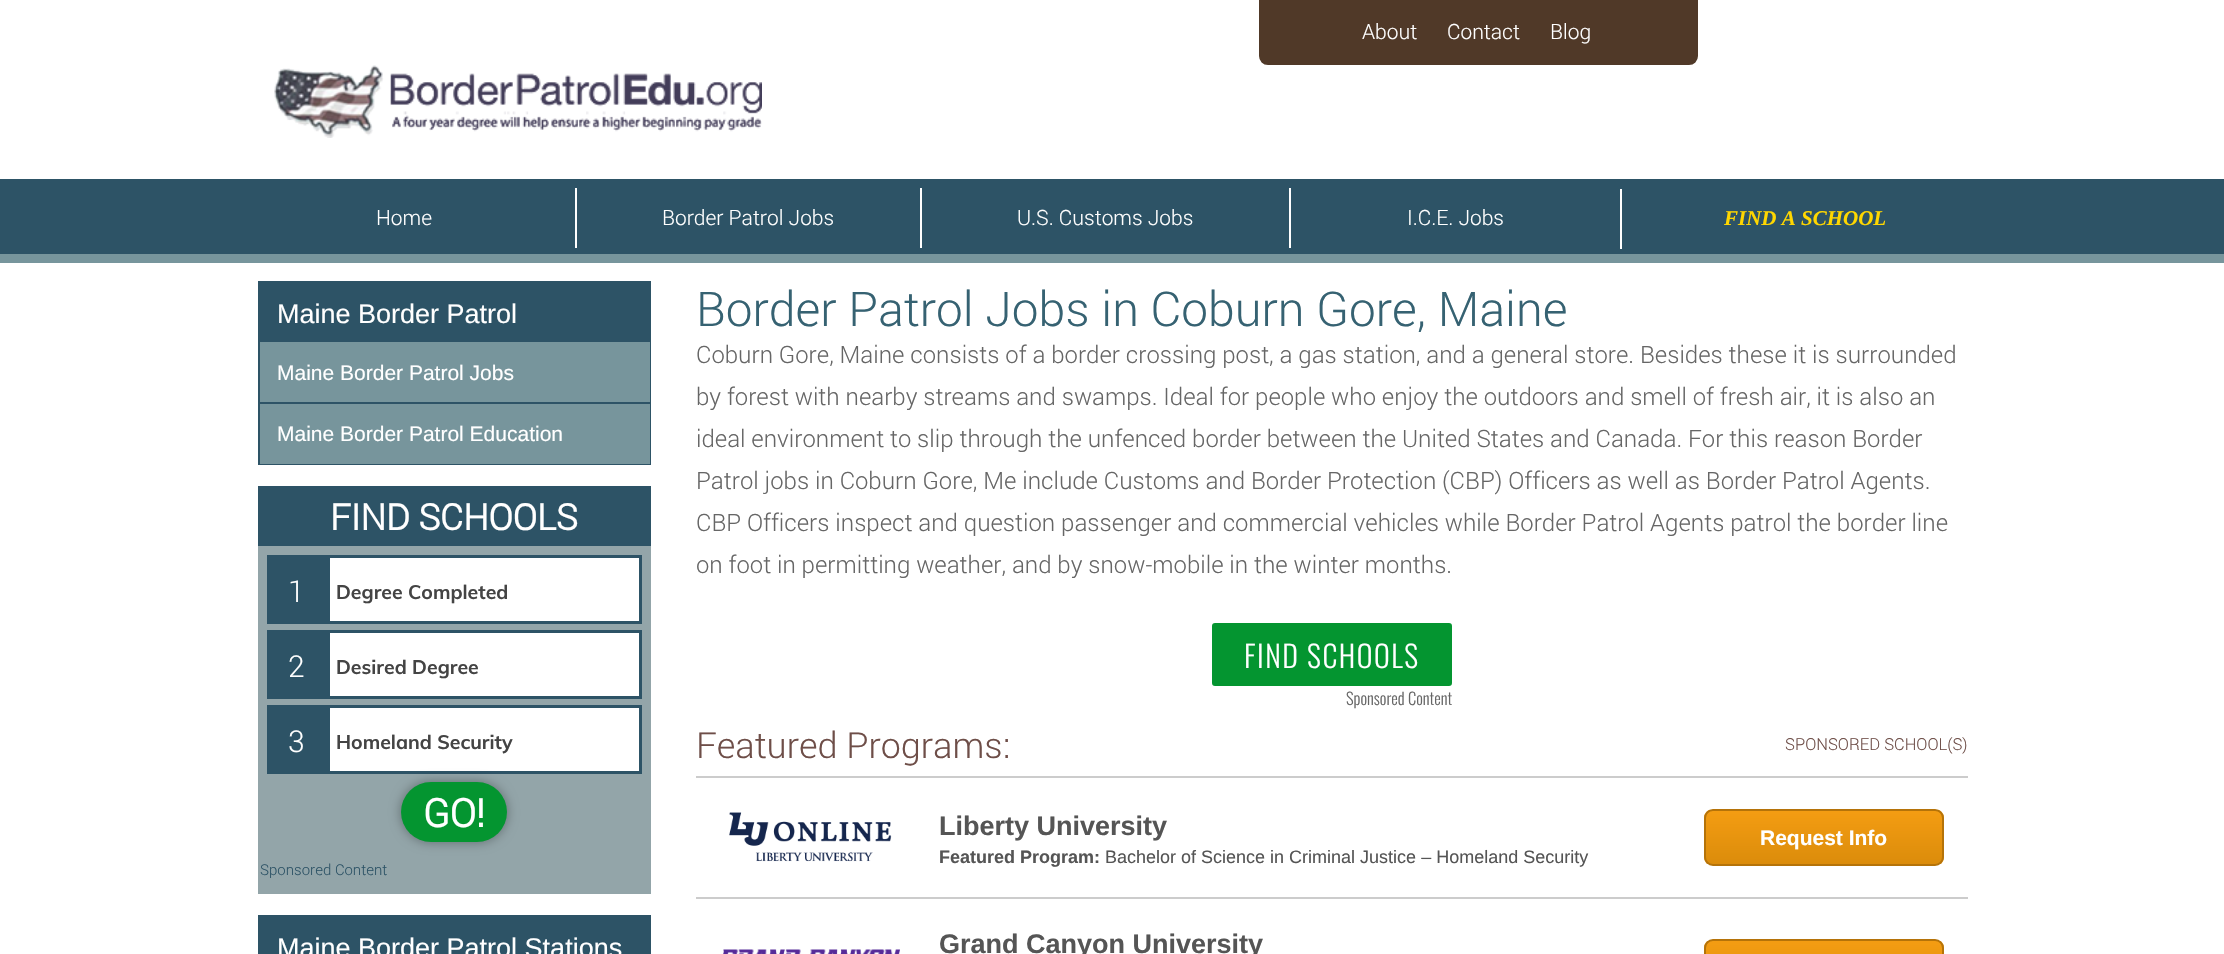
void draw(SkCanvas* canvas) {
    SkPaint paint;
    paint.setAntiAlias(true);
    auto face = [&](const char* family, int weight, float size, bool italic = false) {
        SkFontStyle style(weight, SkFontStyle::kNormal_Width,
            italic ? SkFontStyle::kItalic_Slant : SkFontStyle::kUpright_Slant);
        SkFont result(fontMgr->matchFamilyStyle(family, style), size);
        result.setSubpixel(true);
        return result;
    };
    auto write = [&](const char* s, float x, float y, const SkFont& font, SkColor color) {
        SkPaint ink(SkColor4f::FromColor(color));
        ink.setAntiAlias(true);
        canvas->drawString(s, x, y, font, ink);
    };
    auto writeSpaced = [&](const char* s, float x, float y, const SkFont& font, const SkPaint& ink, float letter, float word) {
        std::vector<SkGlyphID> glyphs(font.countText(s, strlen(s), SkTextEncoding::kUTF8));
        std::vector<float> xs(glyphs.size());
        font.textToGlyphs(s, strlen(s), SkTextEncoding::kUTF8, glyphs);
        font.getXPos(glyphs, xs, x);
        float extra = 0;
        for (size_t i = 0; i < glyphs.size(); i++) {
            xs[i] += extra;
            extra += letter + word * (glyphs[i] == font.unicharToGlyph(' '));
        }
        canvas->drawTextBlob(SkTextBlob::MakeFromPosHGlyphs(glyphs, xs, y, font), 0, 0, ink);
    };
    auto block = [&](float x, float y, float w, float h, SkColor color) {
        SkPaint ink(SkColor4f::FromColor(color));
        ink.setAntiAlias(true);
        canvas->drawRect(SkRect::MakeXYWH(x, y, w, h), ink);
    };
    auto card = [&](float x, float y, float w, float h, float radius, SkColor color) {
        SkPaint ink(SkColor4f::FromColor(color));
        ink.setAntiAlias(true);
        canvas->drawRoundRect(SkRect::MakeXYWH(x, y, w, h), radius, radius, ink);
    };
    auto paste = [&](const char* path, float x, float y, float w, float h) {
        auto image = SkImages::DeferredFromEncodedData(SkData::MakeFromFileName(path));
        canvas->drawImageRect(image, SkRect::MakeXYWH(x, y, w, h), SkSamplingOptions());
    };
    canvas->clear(SK_ColorWHITE);
    paint.setColor(SkColorSetRGB(80, 57, 40));
    canvas->drawPath(SkPathBuilder().moveTo(1260, 0).lineTo(1697, 0).lineTo(1697, 56).cubicTo(1697, 60.5f, 1693.5f, 64, 1689, 64).lineTo(1268, 64).cubicTo(1263.5f, 64, 1260, 60.5f, 1260, 56).close().detach(), paint);
    paint.setStyle(SkPaint::kStroke_Style);
    paint.setStrokeWidth(2);
    canvas->drawPath(SkPathBuilder().moveTo(1260, 0).lineTo(1697, 0).lineTo(1697, 56).cubicTo(1697, 60.5f, 1693.5f, 64, 1689, 64).lineTo(1268, 64).cubicTo(1263.5f, 64, 1260, 60.5f, 1260, 56).close().detach(), paint);
    auto kFont1 = face("Roboto", 300, 21);
    write("About", 1362, 39, kFont1, SK_ColorWHITE);
    write("Contact", 1447, 39, kFont1, SK_ColorWHITE);
    write("Blog", 1550, 39, kFont1, SK_ColorWHITE);
    paste("pic1.png", 274, 65, 488, 73);
    block(0, 179, 2224, 75, SkColorSetRGB(45, 83, 102));
    write("Home", 376, 225, kFont1, SK_ColorWHITE);
    block(575, 188, 2, 60, SK_ColorWHITE);
    write("Border Patrol Jobs", 662, 225, kFont1, SK_ColorWHITE);
    block(920, 188, 2, 60, SK_ColorWHITE);
    write("U.S. Customs Jobs", 1017, 225, kFont1, SK_ColorWHITE);
    block(1289, 188, 2, 60, SK_ColorWHITE);
    write("I.C.E. Jobs", 1407, 225, kFont1, SK_ColorWHITE);
    block(1620, 189, 2, 60, SK_ColorWHITE);
    auto kFont2 = face("Liberation Serif", 700, 21, true);
    write("FIND A SCHOOL", 1724, 225, kFont2, SkColorSetRGB(255, 215, 0));
    block(0, 254, 2224, 9, SkColorSetRGB(119, 149, 156));
    block(258, 281, 393, 61, SkColorSetRGB(45, 83, 102));
    auto kFont3 = face("Liberation Sans", 400, 27);
    write("Maine Border Patrol", 277, 323, kFont3, SK_ColorWHITE);
    block(650, 342, 1, 123, SkColorSetRGB(45, 83, 102));
    block(258, 402, 393, 2, SkColorSetRGB(45, 83, 102));
    block(258, 342, 2, 62, SkColorSetRGB(45, 83, 102));
    block(260, 342, 390, 60, SkColorSetRGB(119, 149, 156));
    auto kFont4 = face("Liberation Sans", 400, 21);
    write("Maine Border Patrol Jobs", 277, 380, kFont4, SK_ColorWHITE);
    block(258, 464, 393, 1, SkColorSetRGB(45, 83, 102));
    block(258, 404, 2, 61, SkColorSetRGB(45, 83, 102));
    block(260, 404, 390, 60, SkColorSetRGB(119, 149, 156));
    write("Maine Border Patrol Education", 277, 441, kFont4, SK_ColorWHITE);
    block(258, 546, 393, 348, SkColorSetRGB(147, 165, 169));
    block(258, 486, 393, 60, SkColorSetRGB(45, 83, 102));
    auto kFont5 = face("Roboto", 700, 36);
    write("FIND SCHOOLS", 330, 530, kFont5, SK_ColorWHITE);
    block(267, 555, 60, 69, SkColorSetRGB(45, 83, 102));
    auto kFont6 = face("Roboto", 300, 30);
    write("1", 288, 602, kFont6, SK_ColorWHITE);
    paint.setStyle(SkPaint::kFill_Style);
    paint.setColor(SK_ColorWHITE);
    canvas->drawRect(SkRect::MakeXYWH(328.5f, 556.5f, 312, 66), paint);
    paint.setStyle(SkPaint::kStroke_Style);
    paint.setStrokeWidth(3);
    paint.setColor(SkColorSetRGB(45, 83, 102));
    canvas->drawRect(SkRect::MakeXYWH(328.5f, 556.5f, 312, 66), paint);
    auto kFont7 = face("Muli", 700, 19.5f);
    write("Degree Completed", 336, 599, kFont7, SkColorSetRGB(68, 68, 68));
    block(267, 630, 60, 69, SkColorSetRGB(45, 83, 102));
    write("2", 288, 677, kFont6, SK_ColorWHITE);
    paint.setStyle(SkPaint::kFill_Style);
    paint.setColor(SK_ColorWHITE);
    canvas->drawRect(SkRect::MakeXYWH(328.5f, 631.5f, 312, 66), paint);
    paint.setStyle(SkPaint::kStroke_Style);
    paint.setColor(SkColorSetRGB(45, 83, 102));
    canvas->drawRect(SkRect::MakeXYWH(328.5f, 631.5f, 312, 66), paint);
    write("Desired Degree", 336, 674, kFont7, SkColorSetRGB(68, 68, 68));
    block(267, 705, 60, 69, SkColorSetRGB(45, 83, 102));
    write("3", 288, 752, kFont6, SK_ColorWHITE);
    paint.setStyle(SkPaint::kFill_Style);
    paint.setColor(SK_ColorWHITE);
    canvas->drawRect(SkRect::MakeXYWH(328.5f, 706.5f, 312, 66), paint);
    paint.setStyle(SkPaint::kStroke_Style);
    paint.setColor(SkColorSetRGB(45, 83, 102));
    canvas->drawRect(SkRect::MakeXYWH(328.5f, 706.5f, 312, 66), paint);
    write("Homeland Security", 336, 749, kFont7, SkColorSetRGB(68, 68, 68));
    paint.setStyle(SkPaint::kFill_Style);
    paint.setColor(SkColorSetARGB(89, 0, 0, 0));
    paint.setMaskFilter(SkMaskFilter::MakeBlur(kNormal_SkBlurStyle, 6));
    canvas->drawRoundRect(SkRect::MakeXYWH(401, 782, 106, 60), 30, 30, paint);
    paint.setMaskFilter(nullptr);
    card(401, 782, 106, 60, 30, SkColorSetRGB(4, 149, 48));
    auto kFont8 = face("Roboto", 700, 39);
    write("GO!", 423, 827, kFont8, SK_ColorWHITE);
    auto kFont9 = face("Roboto", 300, 15);
    write("Sponsored Content", 260, 875, kFont9, SkColorSetRGB(45, 83, 102));
    block(258, 915, 393, 39, SkColorSetRGB(45, 83, 102));
    write("Maine Border Patrol Stations", 277, 957, kFont3, SK_ColorWHITE);
    auto kFont10 = face("Roboto", 300, 48);
    write("Border Patrol Jobs in Coburn Gore, Maine", 696, 326, kFont10, SkColorSetRGB(54, 98, 114));
    auto kFont11 = face("Roboto", 300, 24);
    write("Coburn Gore, Maine consists of a border crossing post, a gas station, and a general store. Besides these it is surrounded", 696, 363, kFont11, SkColorSetRGB(102, 102, 102));
    write("by forest with nearby streams and swamps. Ideal for people who enjoy the outdoors and smell of fresh air, it is also an", 696, 405, kFont11, SkColorSetRGB(102, 102, 102));
    write("ideal environment to slip through the unfenced border between the United States and Canada. For this reason Border", 696, 447, kFont11, SkColorSetRGB(102, 102, 102));
    write("Patrol jobs in Coburn Gore, Me include Customs and Border Protection (CBP) Officers as well as Border Patrol Agents.", 696, 489, kFont11, SkColorSetRGB(102, 102, 102));
    write("CBP Officers inspect and question passenger and commercial vehicles while Border Patrol Agents patrol the border line", 696, 531, kFont11, SkColorSetRGB(102, 102, 102));
    write("on foot in permitting weather, and by snow-mobile in the winter months.", 696, 573, kFont11, SkColorSetRGB(102, 102, 102));
    paint.setColor(SkColorSetRGB(4, 149, 48));
    canvas->drawRoundRect(SkRect::MakeXYWH(1213, 624, 238, 61), 2, 2, paint);
    paint.setStyle(SkPaint::kStroke_Style);
    paint.setStrokeWidth(2);
    canvas->drawRoundRect(SkRect::MakeXYWH(1213, 624, 238, 61), 2, 2, paint);
    auto kFont12 = face("Oswald", 300, 30);
    paint.setStyle(SkPaint::kFill_Style);
    paint.setColor(SK_ColorWHITE);
    writeSpaced("FIND SCHOOLS", 1244, 668, kFont12, paint, 1.5f, 0);
    auto kFont13 = face("Oswald", 300, 16.5f);
    write("Sponsored Content", 1346, 705, kFont13, SkColorSetRGB(102, 102, 102));
    auto kFont14 = face("Roboto", 300, 36);
    write("Featured Programs:", 696, 758, kFont14, SkColorSetRGB(110, 78, 72));
    auto kFont15 = face("Roboto", 300, 16.5f);
    write("SPONSORED SCHOOL(S)", 1785, 750, kFont15, SkColorSetRGB(110, 78, 72));
    block(696, 776, 1272, 2, SkColorSetRGB(204, 204, 204));
    paste("pic2.png", 729, 812, 163, 50);
    auto kFont16 = face("Liberation Sans", 700, 27);
    write("Liberty University", 939, 835, kFont16, SkColorSetRGB(85, 85, 85));
    auto kFont17 = face("Liberation Sans", 700, 18);
    write("Featured Program:", 939, 863, kFont17, SkColorSetRGB(85, 85, 85));
    auto kFont18 = face("Liberation Sans", 400, 18);
    write("Bachelor of Science in Criminal Justice – Homeland Security", 1105, 863, kFont18, SkColorSetRGB(85, 85, 85));
    canvas->save();
    canvas->clipPath(SkPathBuilder().moveTo(1713, 809).lineTo(1935, 809).cubicTo(1940, 809, 1944, 813, 1944, 818).lineTo(1944, 857).cubicTo(1944, 862, 1940, 866, 1935, 866).lineTo(1713, 866).cubicTo(1708, 866, 1704, 862, 1704, 857).lineTo(1704, 818).cubicTo(1704, 813, 1708, 809, 1713, 809).close().detach(), true);
    {
        const SkColor colors[] = {SkColorSetRGB(243, 156, 18), SkColorSetRGB(219, 140, 11)};
        const float stops[] = {0.05f, 1};
        const SkPoint ends[] = {{1824, 810}, {1824, 864}};
        paint.setShader(SkGradientShader::MakeLinear(ends, colors, stops, 2, SkTileMode::kClamp));
        paint.setAlpha(255);
    }
    canvas->drawRect(SkRect::MakeXYWH(1704, 810, 240, 54), paint);
    canvas->restore();
    paint.setShader(nullptr);
    paint.setColor(SkColorSetRGB(243, 156, 18));
    canvas->drawPath(SkPathBuilder().moveTo(1713, 812).lineTo(1935, 812).cubicTo(1945, 812, 1942, 826, 1942, 832).lineTo(1942, 860).cubicTo(1942, 859, 1943, 858, 1943, 856).lineTo(1943, 818).cubicTo(1943, 814, 1939, 810, 1935, 810).lineTo(1714, 810).cubicTo(1710, 810, 1706, 814, 1706, 818).lineTo(1706, 819).cubicTo(1706, 815, 1709, 812, 1713, 812).close().detach(), paint);
    paint.setStyle(SkPaint::kStroke_Style);
    paint.setColor(SkColorSetRGB(181, 115, 9));
    canvas->drawRoundRect(SkRect::MakeXYWH(1705, 810, 238, 55), 8, 8, paint);
    auto kFont19 = face("Liberation Sans", 700, 21);
    write("Request Info", 1760, 845, kFont19, SK_ColorWHITE);
    block(696, 897, 1272, 2, SkColorSetRGB(204, 204, 204));
    paste("pic3.png", 723, 949, 177, 5);
    write("Grand Canyon University", 939, 953, kFont16, SkColorSetRGB(85, 85, 85));
    canvas->save();
    canvas->clipPath(SkPathBuilder().moveTo(1713, 939).lineTo(1935, 939).cubicTo(1940, 939, 1944, 943, 1944, 948).lineTo(1944, 987).cubicTo(1944, 992, 1940, 996, 1935, 996).lineTo(1713, 996).cubicTo(1708, 996, 1704, 992, 1704, 987).lineTo(1704, 948).cubicTo(1704, 943, 1708, 939, 1713, 939).close().detach(), true);
    paint.setStyle(SkPaint::kFill_Style);
    {
        const SkColor colors[] = {SkColorSetRGB(243, 156, 18), SkColorSetRGB(219, 140, 11)};
        const float stops[] = {0.05f, 1};
        const SkPoint ends[] = {{1824, 941}, {1824, 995}};
        paint.setShader(SkGradientShader::MakeLinear(ends, colors, stops, 2, SkTileMode::kClamp));
        paint.setAlpha(255);
    }
    canvas->drawRect(SkRect::MakeXYWH(1704, 941, 240, 13), paint);
    canvas->restore();
    paint.setShader(nullptr);
    paint.setColor(SkColorSetRGB(243, 156, 18));
    canvas->drawPath(SkPathBuilder().moveTo(1713, 942).lineTo(1935, 942).cubicTo(1939, 942, 1942, 945, 1942, 950).lineTo(1942, 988).lineTo(1941, 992).cubicTo(1942, 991, 1943, 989, 1943, 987).lineTo(1943, 949).cubicTo(1943, 945, 1939, 941, 1935, 941).lineTo(1714, 941).cubicTo(1710, 941, 1706, 945, 1706, 949).lineTo(1706, 950).cubicTo(1706, 945, 1709, 942, 1713, 942).close().detach(), paint);
    paint.setStyle(SkPaint::kStroke_Style);
    paint.setColor(SkColorSetRGB(181, 115, 9));
    canvas->drawRoundRect(SkRect::MakeXYWH(1705, 940, 238, 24), 8, 8, paint);
}
